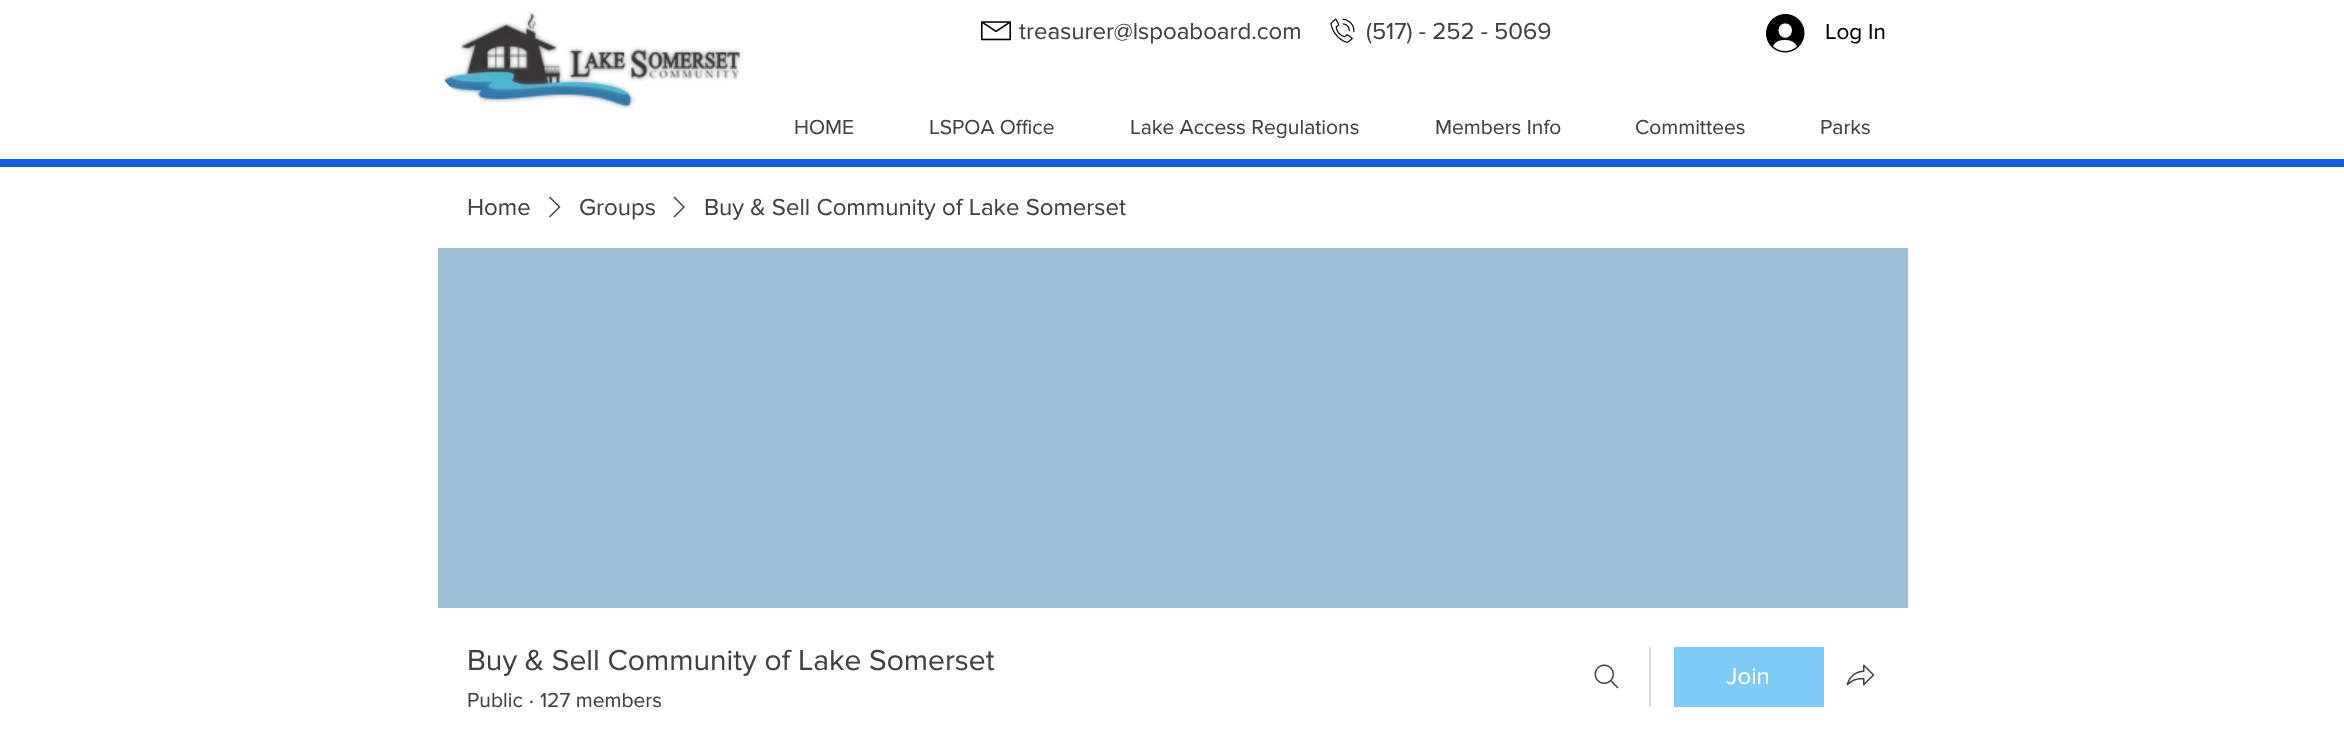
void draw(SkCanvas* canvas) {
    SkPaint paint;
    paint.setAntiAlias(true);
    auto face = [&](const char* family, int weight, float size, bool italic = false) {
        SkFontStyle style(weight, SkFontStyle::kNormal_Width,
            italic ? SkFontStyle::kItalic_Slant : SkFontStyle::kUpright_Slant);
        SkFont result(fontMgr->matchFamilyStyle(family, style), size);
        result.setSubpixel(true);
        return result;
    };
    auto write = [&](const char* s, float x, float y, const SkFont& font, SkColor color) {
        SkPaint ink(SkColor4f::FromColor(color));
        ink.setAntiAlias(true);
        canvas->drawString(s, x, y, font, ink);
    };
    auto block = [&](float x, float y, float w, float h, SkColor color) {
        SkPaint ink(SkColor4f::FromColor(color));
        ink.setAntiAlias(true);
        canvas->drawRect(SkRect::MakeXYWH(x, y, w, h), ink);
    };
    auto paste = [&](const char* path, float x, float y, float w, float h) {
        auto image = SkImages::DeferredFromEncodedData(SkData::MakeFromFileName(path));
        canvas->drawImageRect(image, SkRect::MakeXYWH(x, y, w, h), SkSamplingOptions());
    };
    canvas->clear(SK_ColorWHITE);
    paste("pic1.png", 443, 11, 300, 99);
    paste("pic2.png", 981, 21, 30, 20);
    auto kFont1 = face("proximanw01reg", 400, 24);
    write("treasurer@lspoaboard.com", 1019, 39, kFont1, SkColorSetRGB(65, 65, 65));
    paste("pic3.png", 1330, 18, 25, 25);
    write("(517) - 252 - 5069", 1366, 39, kFont1, SkColorSetRGB(65, 65, 65));
    paste("pic4.png", 1766, 14, 39, 39);
    auto kFont2 = face("proximanw01reg", 400, 22.5f);
    write("Log In", 1825, 39, kFont2, SK_ColorBLACK);
    auto kFont3 = face("proximanw01reg", 400, 21);
    write("HOME", 794, 134, kFont3, SkColorSetRGB(65, 65, 65));
    write("LSPOA Office", 929, 134, kFont3, SkColorSetRGB(65, 65, 65));
    write("Lake Access Regulations", 1130, 134, kFont3, SkColorSetRGB(65, 65, 65));
    write("Members Info", 1435, 134, kFont3, SkColorSetRGB(65, 65, 65));
    write("Committees", 1635, 134, kFont3, SkColorSetRGB(65, 65, 65));
    write("Parks", 1820, 134, kFont3, SkColorSetRGB(65, 65, 65));
    block(0, 159, 2344, 8, SkColorSetRGB(21, 93, 233));
    write("Home", 467, 215, kFont1, SkColorSetRGB(65, 65, 65));
    paint.setColor(SkColorSetRGB(65, 65, 65));
    canvas->drawPath(SkPathBuilder(SkPathFillType::kEvenOdd).moveTo(550, 196.5f).lineTo(560.5f, 207).lineTo(550, 217.5f).lineTo(549, 216.5f).lineTo(558.5f, 207).lineTo(549, 197.5f).close().detach(), paint);
    write("Groups", 579, 215, kFont1, SkColorSetRGB(65, 65, 65));
    canvas->drawPath(SkPathBuilder(SkPathFillType::kEvenOdd).moveTo(674.5f, 196.5f).lineTo(685, 207).lineTo(674.5f, 217.5f).lineTo(673.5f, 216.5f).lineTo(683, 207).lineTo(673.5f, 197.5f).close().detach(), paint);
    write("Buy & Sell Community of Lake Somerset", 704, 215, kFont1, SkColorSetRGB(65, 65, 65));
    block(438, 248, 1470, 360, SkColorSetRGB(156, 192, 213));
    auto kFont4 = face("proximanw01reg", 400, 30);
    write("Buy & Sell Community of Lake Somerset", 467, 670, kFont4, SkColorSetRGB(65, 65, 65));
    write("Public", 467, 707, kFont3, SkColorSetRGB(65, 65, 65));
    write("·", 529, 707, kFont3, SkColorSetRGB(65, 65, 65));
    write("127 members", 540, 707, kFont3, SkColorSetRGB(65, 65, 65));
    paste("pic5.png", 1594, 664, 25, 25);
    block(1649, 647, 2, 60, SkColorSetRGB(217, 217, 217));
    block(1674, 647, 150, 60, SkColorSetRGB(127, 204, 247));
    write("Join", 1726, 684, kFont1, SK_ColorWHITE);
    paste("pic6.png", 1846, 664, 29, 22);
}
